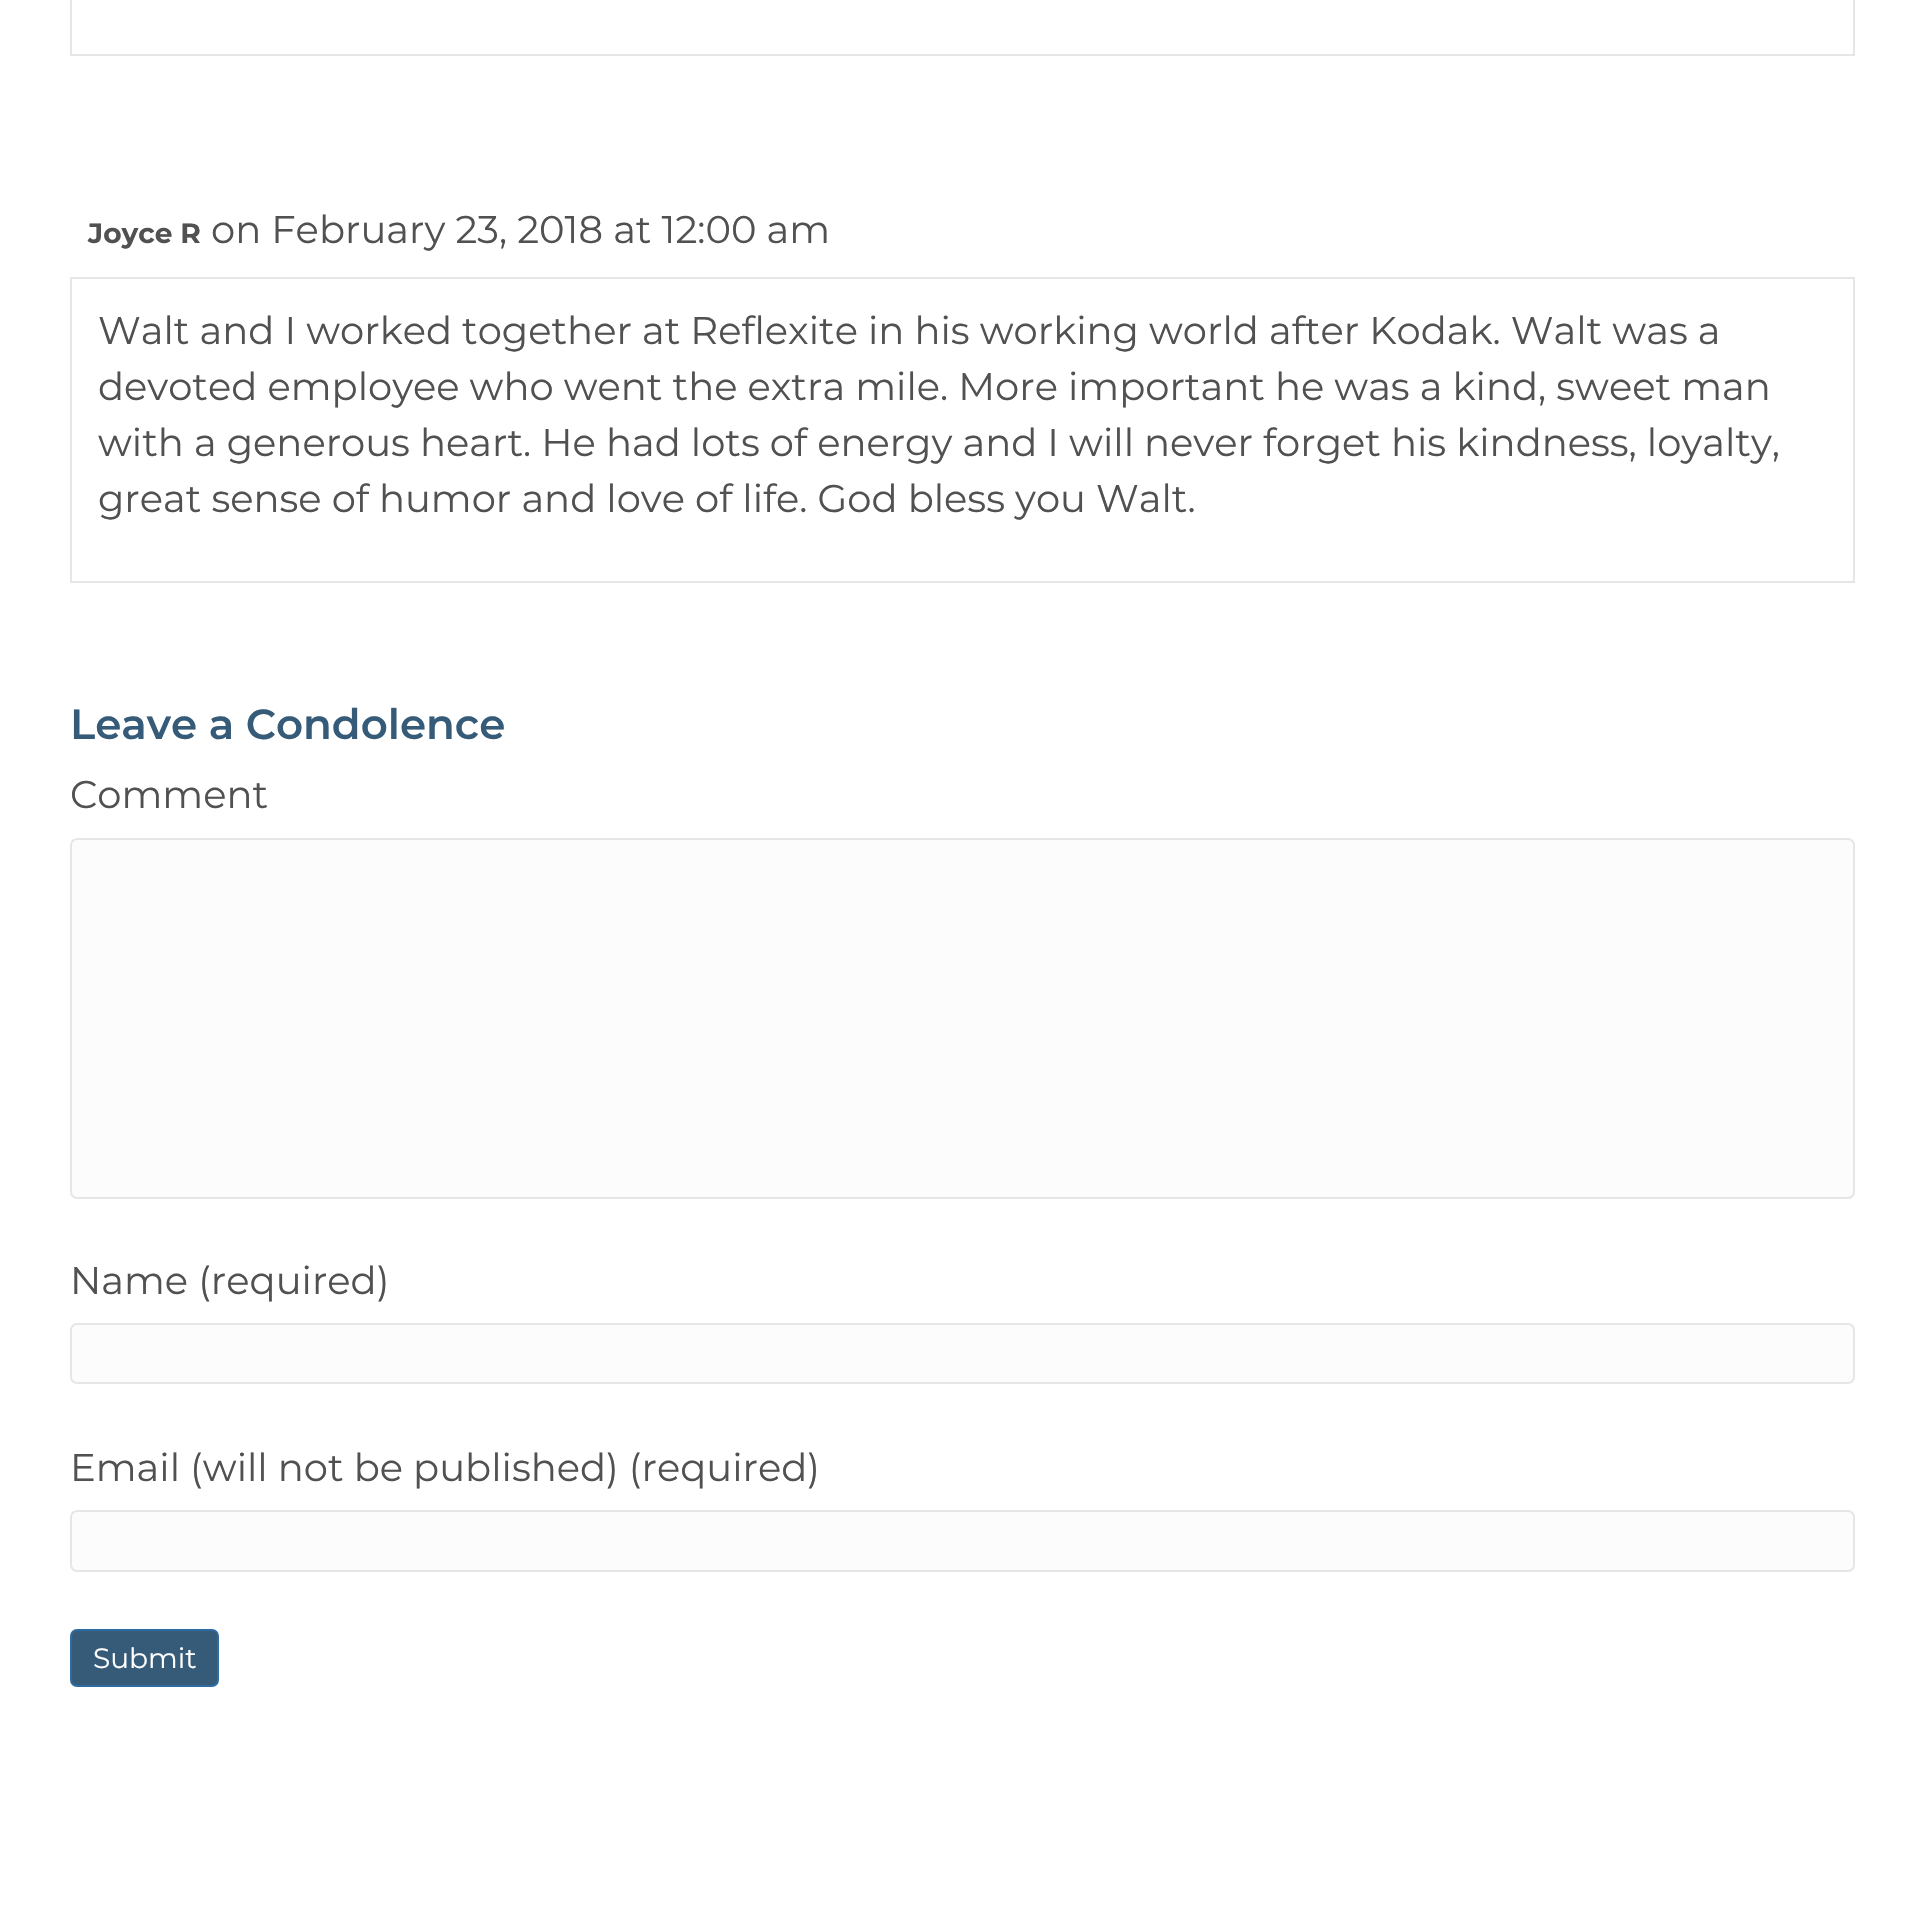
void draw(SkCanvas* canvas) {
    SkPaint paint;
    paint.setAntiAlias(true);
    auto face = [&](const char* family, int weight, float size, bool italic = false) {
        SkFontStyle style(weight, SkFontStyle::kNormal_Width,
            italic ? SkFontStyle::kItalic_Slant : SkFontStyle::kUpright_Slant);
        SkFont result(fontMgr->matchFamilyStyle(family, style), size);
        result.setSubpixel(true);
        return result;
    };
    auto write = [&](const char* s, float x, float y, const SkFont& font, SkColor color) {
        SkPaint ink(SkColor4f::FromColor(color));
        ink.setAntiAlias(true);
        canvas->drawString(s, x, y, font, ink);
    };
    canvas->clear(SK_ColorWHITE);
    paint.setStyle(SkPaint::kStroke_Style);
    paint.setStrokeWidth(2);
    paint.setColor(SkColorSetRGB(230, 230, 230));
    canvas->drawRect(SkRect::MakeXYWH(71, -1, 1783, 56), paint);
    auto kFont1 = face("Montserrat", 700, 28);
    write("Joyce R", 88, 243, kFont1, SkColorSetRGB(81, 81, 81));
    auto kFont2 = face("Montserrat", 400, 38.5f);
    write("on February 23, 2018 at 12:00 am", 211, 243, kFont2, SkColorSetRGB(81, 81, 81));
    canvas->drawRect(SkRect::MakeXYWH(71, 278, 1783, 304), paint);
    write("Walt and I worked together at Reflexite in his working world after Kodak. Walt was a", 98, 344, kFont2, SkColorSetRGB(81, 81, 81));
    write("devoted employee who went the extra mile. More important he was a kind, sweet man", 98, 400, kFont2, SkColorSetRGB(81, 81, 81));
    write("with a generous heart. He had lots of energy and I will never forget his kindness, loyalty,", 98, 456, kFont2, SkColorSetRGB(81, 81, 81));
    write("great sense of humor and love of life. God bless you Walt.", 98, 512, kFont2, SkColorSetRGB(81, 81, 81));
    auto kFont3 = face("Montserrat", 600, 42);
    write("Leave a Condolence", 70, 739, kFont3, SkColorSetRGB(53, 91, 121));
    write("Comment", 70, 808, kFont2, SkColorSetRGB(81, 81, 81));
    paint.setStyle(SkPaint::kFill_Style);
    paint.setColor(SkColorSetRGB(252, 252, 252));
    canvas->drawRoundRect(SkRect::MakeXYWH(71, 839, 1783, 359), 6, 6, paint);
    paint.setStyle(SkPaint::kStroke_Style);
    paint.setColor(SkColorSetRGB(230, 230, 230));
    canvas->drawRoundRect(SkRect::MakeXYWH(71, 839, 1783, 359), 6, 6, paint);
    write("Name (required)", 70, 1294, kFont2, SkColorSetRGB(81, 81, 81));
    paint.setStyle(SkPaint::kFill_Style);
    paint.setColor(SkColorSetRGB(252, 252, 252));
    canvas->drawRoundRect(SkRect::MakeXYWH(71, 1324, 1783, 59), 6, 6, paint);
    paint.setStyle(SkPaint::kStroke_Style);
    paint.setColor(SkColorSetRGB(230, 230, 230));
    canvas->drawRoundRect(SkRect::MakeXYWH(71, 1324, 1783, 59), 6, 6, paint);
    write("Email (will not be published) (required)", 70, 1481, kFont2, SkColorSetRGB(81, 81, 81));
    paint.setStyle(SkPaint::kFill_Style);
    paint.setColor(SkColorSetRGB(252, 252, 252));
    canvas->drawRoundRect(SkRect::MakeXYWH(71, 1511, 1783, 60), 6, 6, paint);
    paint.setStyle(SkPaint::kStroke_Style);
    paint.setColor(SkColorSetRGB(230, 230, 230));
    canvas->drawRoundRect(SkRect::MakeXYWH(71, 1511, 1783, 60), 6, 6, paint);
    paint.setStyle(SkPaint::kFill_Style);
    paint.setColor(SkColorSetRGB(53, 91, 121));
    canvas->drawRoundRect(SkRect::MakeXYWH(71, 1630, 147, 56), 6, 6, paint);
    paint.setStyle(SkPaint::kStroke_Style);
    paint.setColor(SkColorSetRGB(45, 108, 162));
    canvas->drawRoundRect(SkRect::MakeXYWH(71, 1630, 147, 56), 6, 6, paint);
    auto kFont4 = face("Montserrat", 400, 28);
    write("Submit", 93, 1668, kFont4, SK_ColorWHITE);
}
